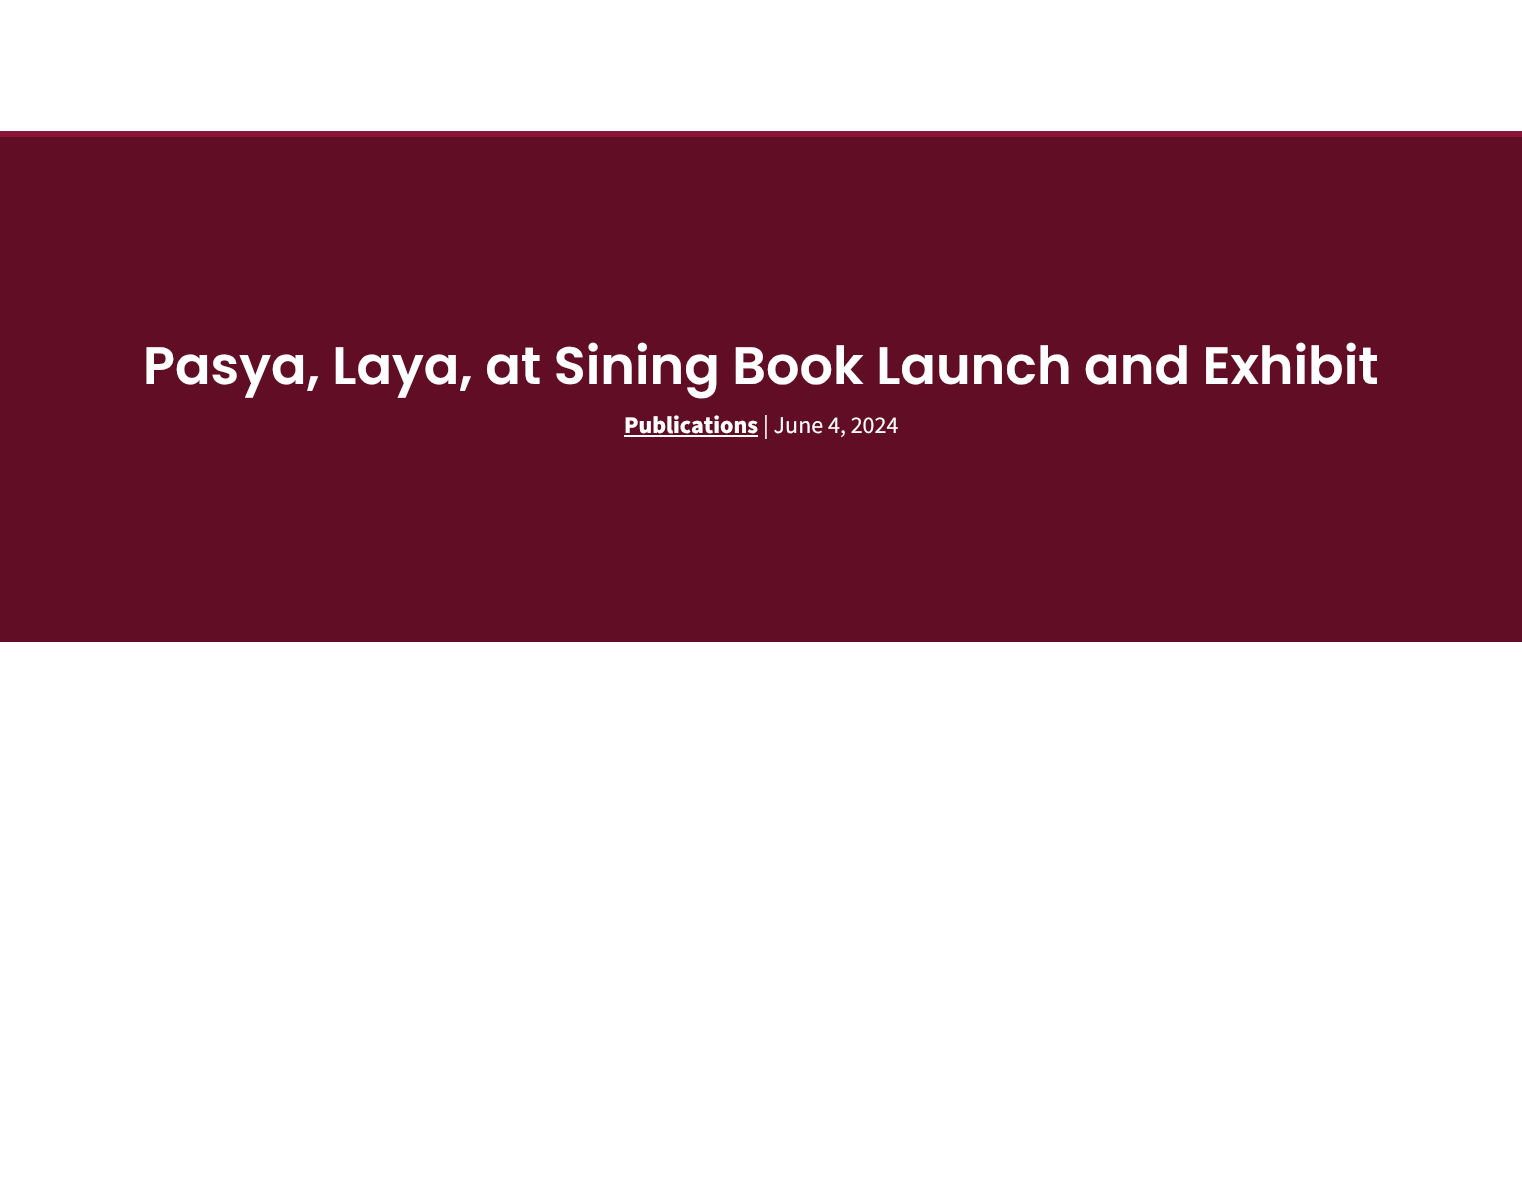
void draw(SkCanvas* canvas) {
    SkPaint paint;
    paint.setAntiAlias(true);
    auto face = [&](const char* family, int weight, float size, bool italic = false) {
        SkFontStyle style(weight, SkFontStyle::kNormal_Width,
            italic ? SkFontStyle::kItalic_Slant : SkFontStyle::kUpright_Slant);
        SkFont result(fontMgr->matchFamilyStyle(family, style), size);
        result.setSubpixel(true);
        return result;
    };
    auto write = [&](const char* s, float x, float y, const SkFont& font, SkColor color) {
        SkPaint ink(SkColor4f::FromColor(color));
        ink.setAntiAlias(true);
        canvas->drawString(s, x, y, font, ink);
    };
    auto block = [&](float x, float y, float w, float h, SkColor color) {
        SkPaint ink(SkColor4f::FromColor(color));
        ink.setAntiAlias(true);
        canvas->drawRect(SkRect::MakeXYWH(x, y, w, h), ink);
    };
    canvas->clear(SK_ColorWHITE);
    block(0, 131, 1522, 6, SkColorSetRGB(138, 21, 56));
    block(0, 137, 1522, 505, SkColorSetRGB(98, 13, 38));
    auto kFont1 = face("Poppins", 600, 52.5f);
    write("Pasya, Laya, at Sining Book Launch and Exhibit", 143, 384, kFont1, SK_ColorWHITE);
    auto kFont2 = face("Source Sans 3", 800, 24);
    write("Publications", 624, 433, kFont2, SK_ColorWHITE);
    block(624, 435, 134, 2, SK_ColorWHITE);
    auto kFont3 = face("Source Sans 3", 400, 24);
    write("| June 4, 2024", 763, 433, kFont3, SK_ColorWHITE);
}
